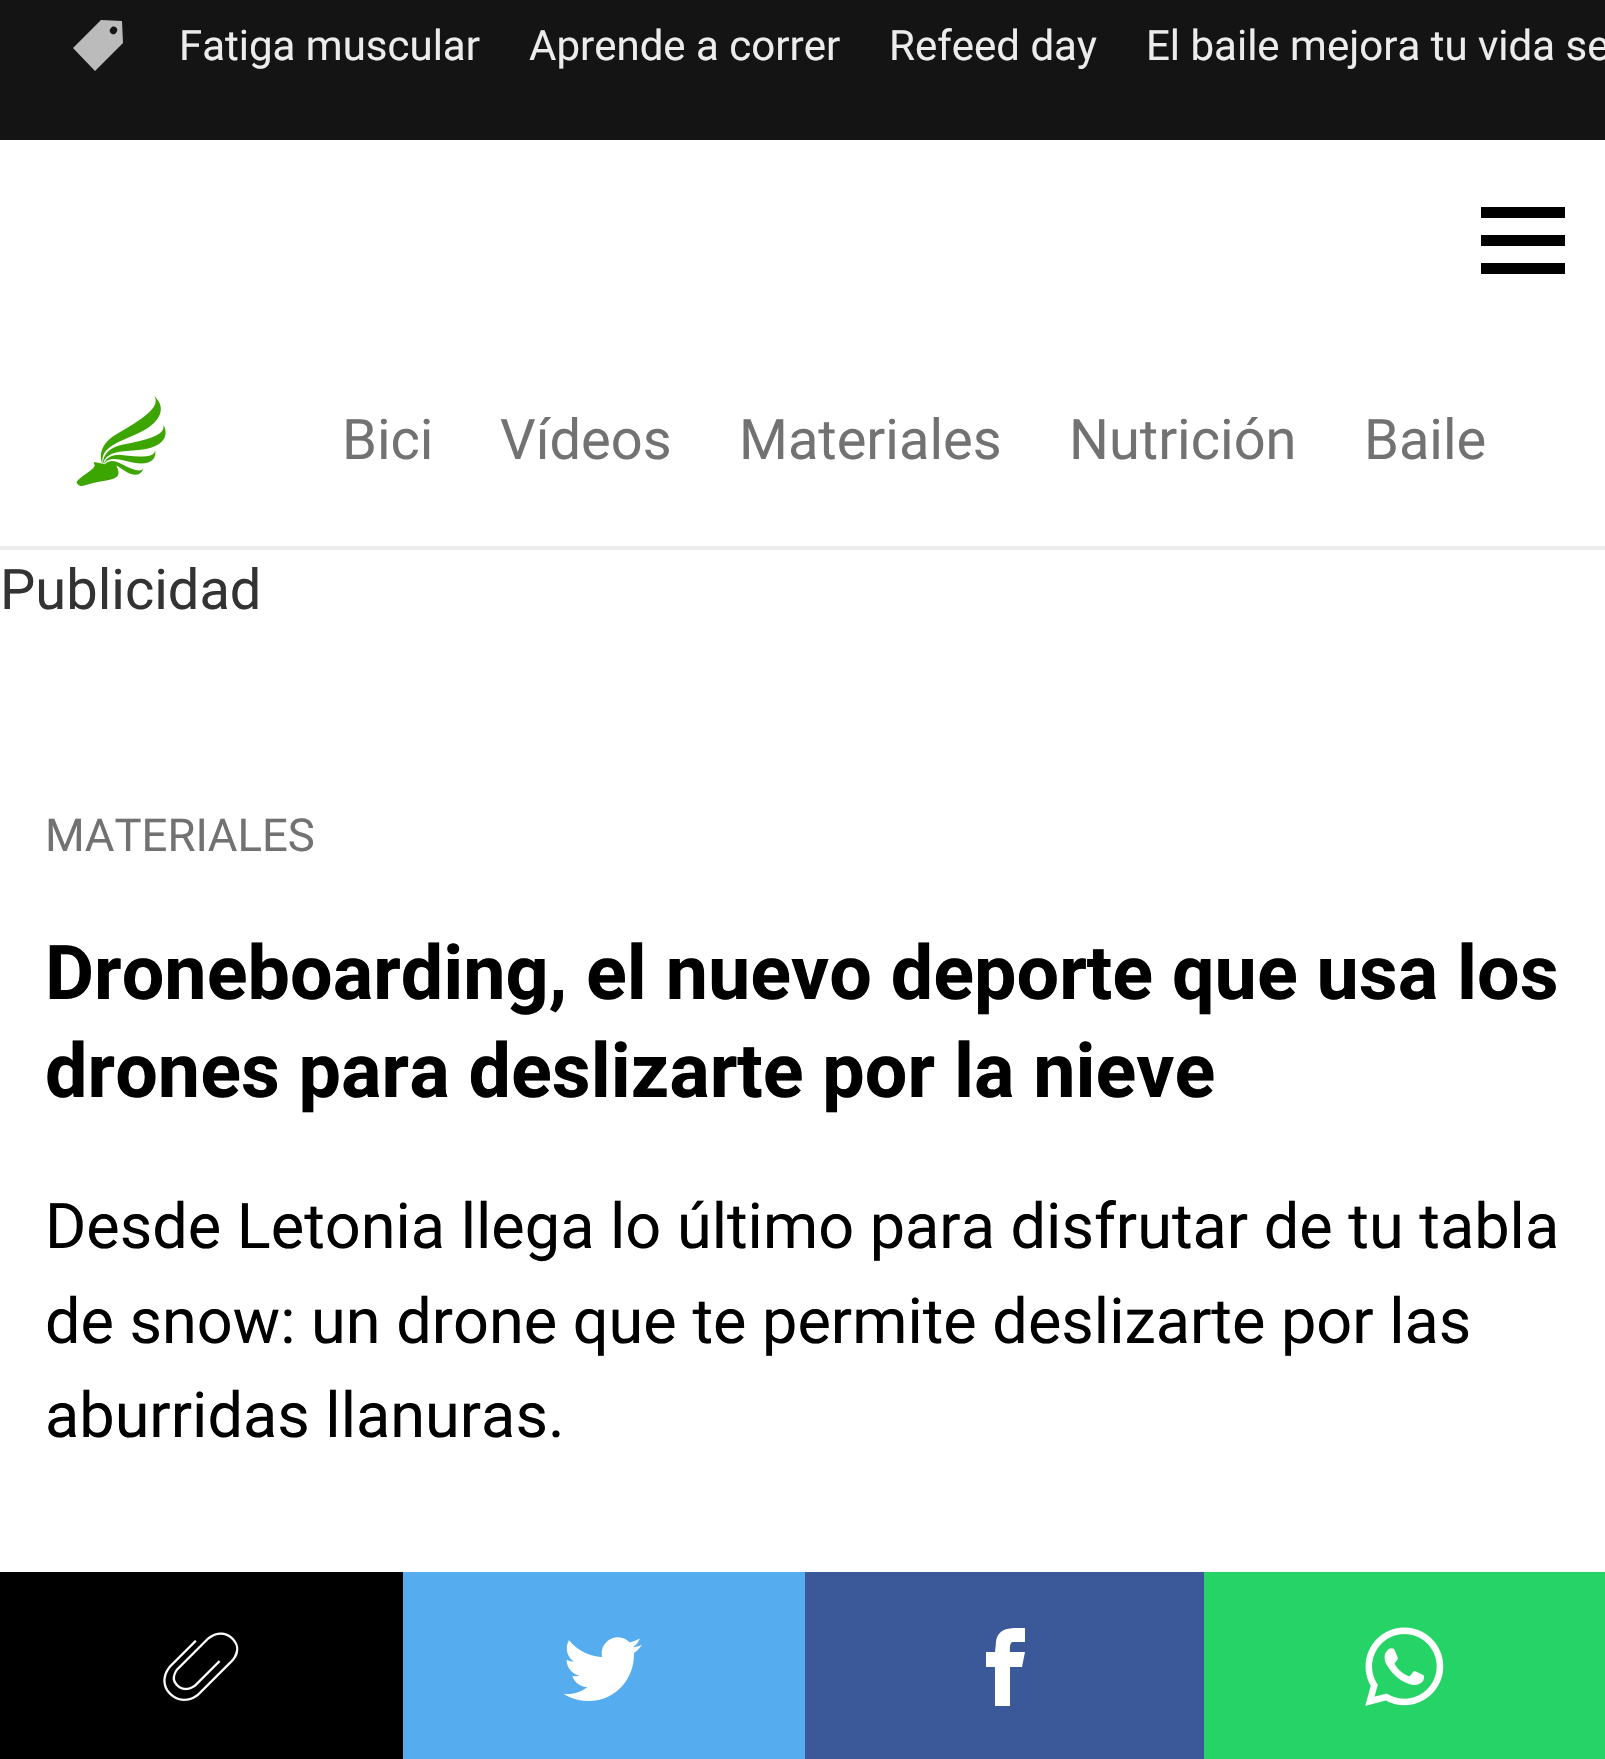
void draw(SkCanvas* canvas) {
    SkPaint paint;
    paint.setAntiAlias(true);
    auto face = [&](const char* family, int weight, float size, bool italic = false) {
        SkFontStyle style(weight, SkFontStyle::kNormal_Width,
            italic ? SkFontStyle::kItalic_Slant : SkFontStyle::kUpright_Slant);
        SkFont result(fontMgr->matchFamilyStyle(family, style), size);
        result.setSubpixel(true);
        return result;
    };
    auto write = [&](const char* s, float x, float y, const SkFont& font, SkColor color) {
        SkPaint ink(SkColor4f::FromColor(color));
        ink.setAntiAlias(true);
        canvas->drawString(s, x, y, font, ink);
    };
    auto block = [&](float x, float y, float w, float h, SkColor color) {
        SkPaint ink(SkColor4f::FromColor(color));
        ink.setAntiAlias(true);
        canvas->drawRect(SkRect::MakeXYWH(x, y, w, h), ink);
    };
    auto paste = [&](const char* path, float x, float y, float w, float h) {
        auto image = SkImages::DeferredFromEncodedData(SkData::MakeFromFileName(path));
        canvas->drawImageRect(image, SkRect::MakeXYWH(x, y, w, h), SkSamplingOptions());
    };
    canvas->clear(SkColorSetRGB(20, 20, 20));
    paint.setColor(SkColorSetRGB(187, 187, 187));
    canvas->drawPath(SkPathBuilder().moveTo(122, 21).lineTo(101, 20).lineTo(73, 48).lineTo(95, 71).lineTo(123, 43).close().moveTo(116, 33).cubicTo(113, 37, 107, 31, 111, 28).cubicTo(114, 24, 120, 29, 116, 33).close().detach(), paint);
    auto kFont1 = face("Roboto", 400, 42);
    write("Fatiga muscular", 179, 60, kFont1, SkColorSetRGB(236, 236, 236));
    write("Aprende a correr", 529, 60, kFont1, SkColorSetRGB(236, 236, 236));
    write("Refeed day", 889, 60, kFont1, SkColorSetRGB(236, 236, 236));
    write("El baile mejora tu vida se", 1146, 60, kFont1, SkColorSetRGB(236, 236, 236));
    block(0, 140, 1605, 406, SK_ColorWHITE);
    block(1481, 235, 84, 11, SK_ColorBLACK);
    block(1481, 207, 84, 11, SK_ColorBLACK);
    block(1481, 263, 84, 11, SK_ColorBLACK);
    block(0, 546, 1605, 4, SkColorSetRGB(236, 236, 236));
    paste("pic1.png", 76, 396, 90, 91);
    auto kFont2 = face("Roboto", 400, 56);
    write("Bici", 342, 459, kFont2, SkColorSetRGB(114, 114, 114));
    write("Vídeos", 500, 459, kFont2, SkColorSetRGB(114, 114, 114));
    write("Materiales", 739, 459, kFont2, SkColorSetRGB(114, 114, 114));
    write("Nutrición", 1069, 459, kFont2, SkColorSetRGB(114, 114, 114));
    write("Baile", 1364, 459, kFont2, SkColorSetRGB(114, 114, 114));
    block(0, 550, 1605, 1022, SK_ColorWHITE);
    write("Publicidad", 0, 609, kFont2, SkColorSetRGB(51, 51, 51));
    auto kFont3 = face("Roboto", 400, 45.5f);
    write("MATERIALES", 45, 851, kFont3, SkColorSetRGB(114, 114, 114));
    auto kFont4 = face("Roboto", 700, 75.5f);
    write("Droneboarding, el nuevo deporte que usa los", 45, 999, kFont4, SK_ColorBLACK);
    write("drones para deslizarte por la nieve", 45, 1097, kFont4, SK_ColorBLACK);
    auto kFont5 = face("Roboto", 400, 63);
    write("Desde Letonia llega lo último para disfrutar de tu tabla", 45, 1248, kFont5, SK_ColorBLACK);
    write("de snow: un drone que te permite deslizarte por las", 45, 1343, kFont5, SK_ColorBLACK);
    write("aburridas llanuras.", 45, 1437, kFont5, SK_ColorBLACK);
    block(0, 1572, 403, 187, SK_ColorBLACK);
    paste("pic2.png", 163, 1632, 76, 69);
    block(403, 1572, 402, 187, SkColorSetRGB(85, 172, 238));
    paste("pic3.png", 563, 1637, 79, 64);
    block(805, 1572, 399, 187, SkColorSetRGB(59, 89, 152));
    paint.setColor(SK_ColorWHITE);
    canvas->drawPath(SkPathBuilder().moveTo(1013, 1642).lineTo(1025, 1642).lineTo(1025, 1628).cubicTo(1013, 1628, 998, 1626, 996, 1642).lineTo(995, 1652).lineTo(986, 1652).lineTo(986, 1667).lineTo(995, 1667).lineTo(995, 1706).lineTo(1010, 1706).lineTo(1010, 1667).lineTo(1022, 1667).lineTo(1025, 1652).lineTo(1010, 1652).cubicTo(1010, 1650, 1009, 1642, 1013, 1642).close().detach(), paint);
    block(1204, 1572, 401, 187, SkColorSetRGB(37, 211, 102));
    paste("pic4.png", 1365, 1627, 79, 79);
}
